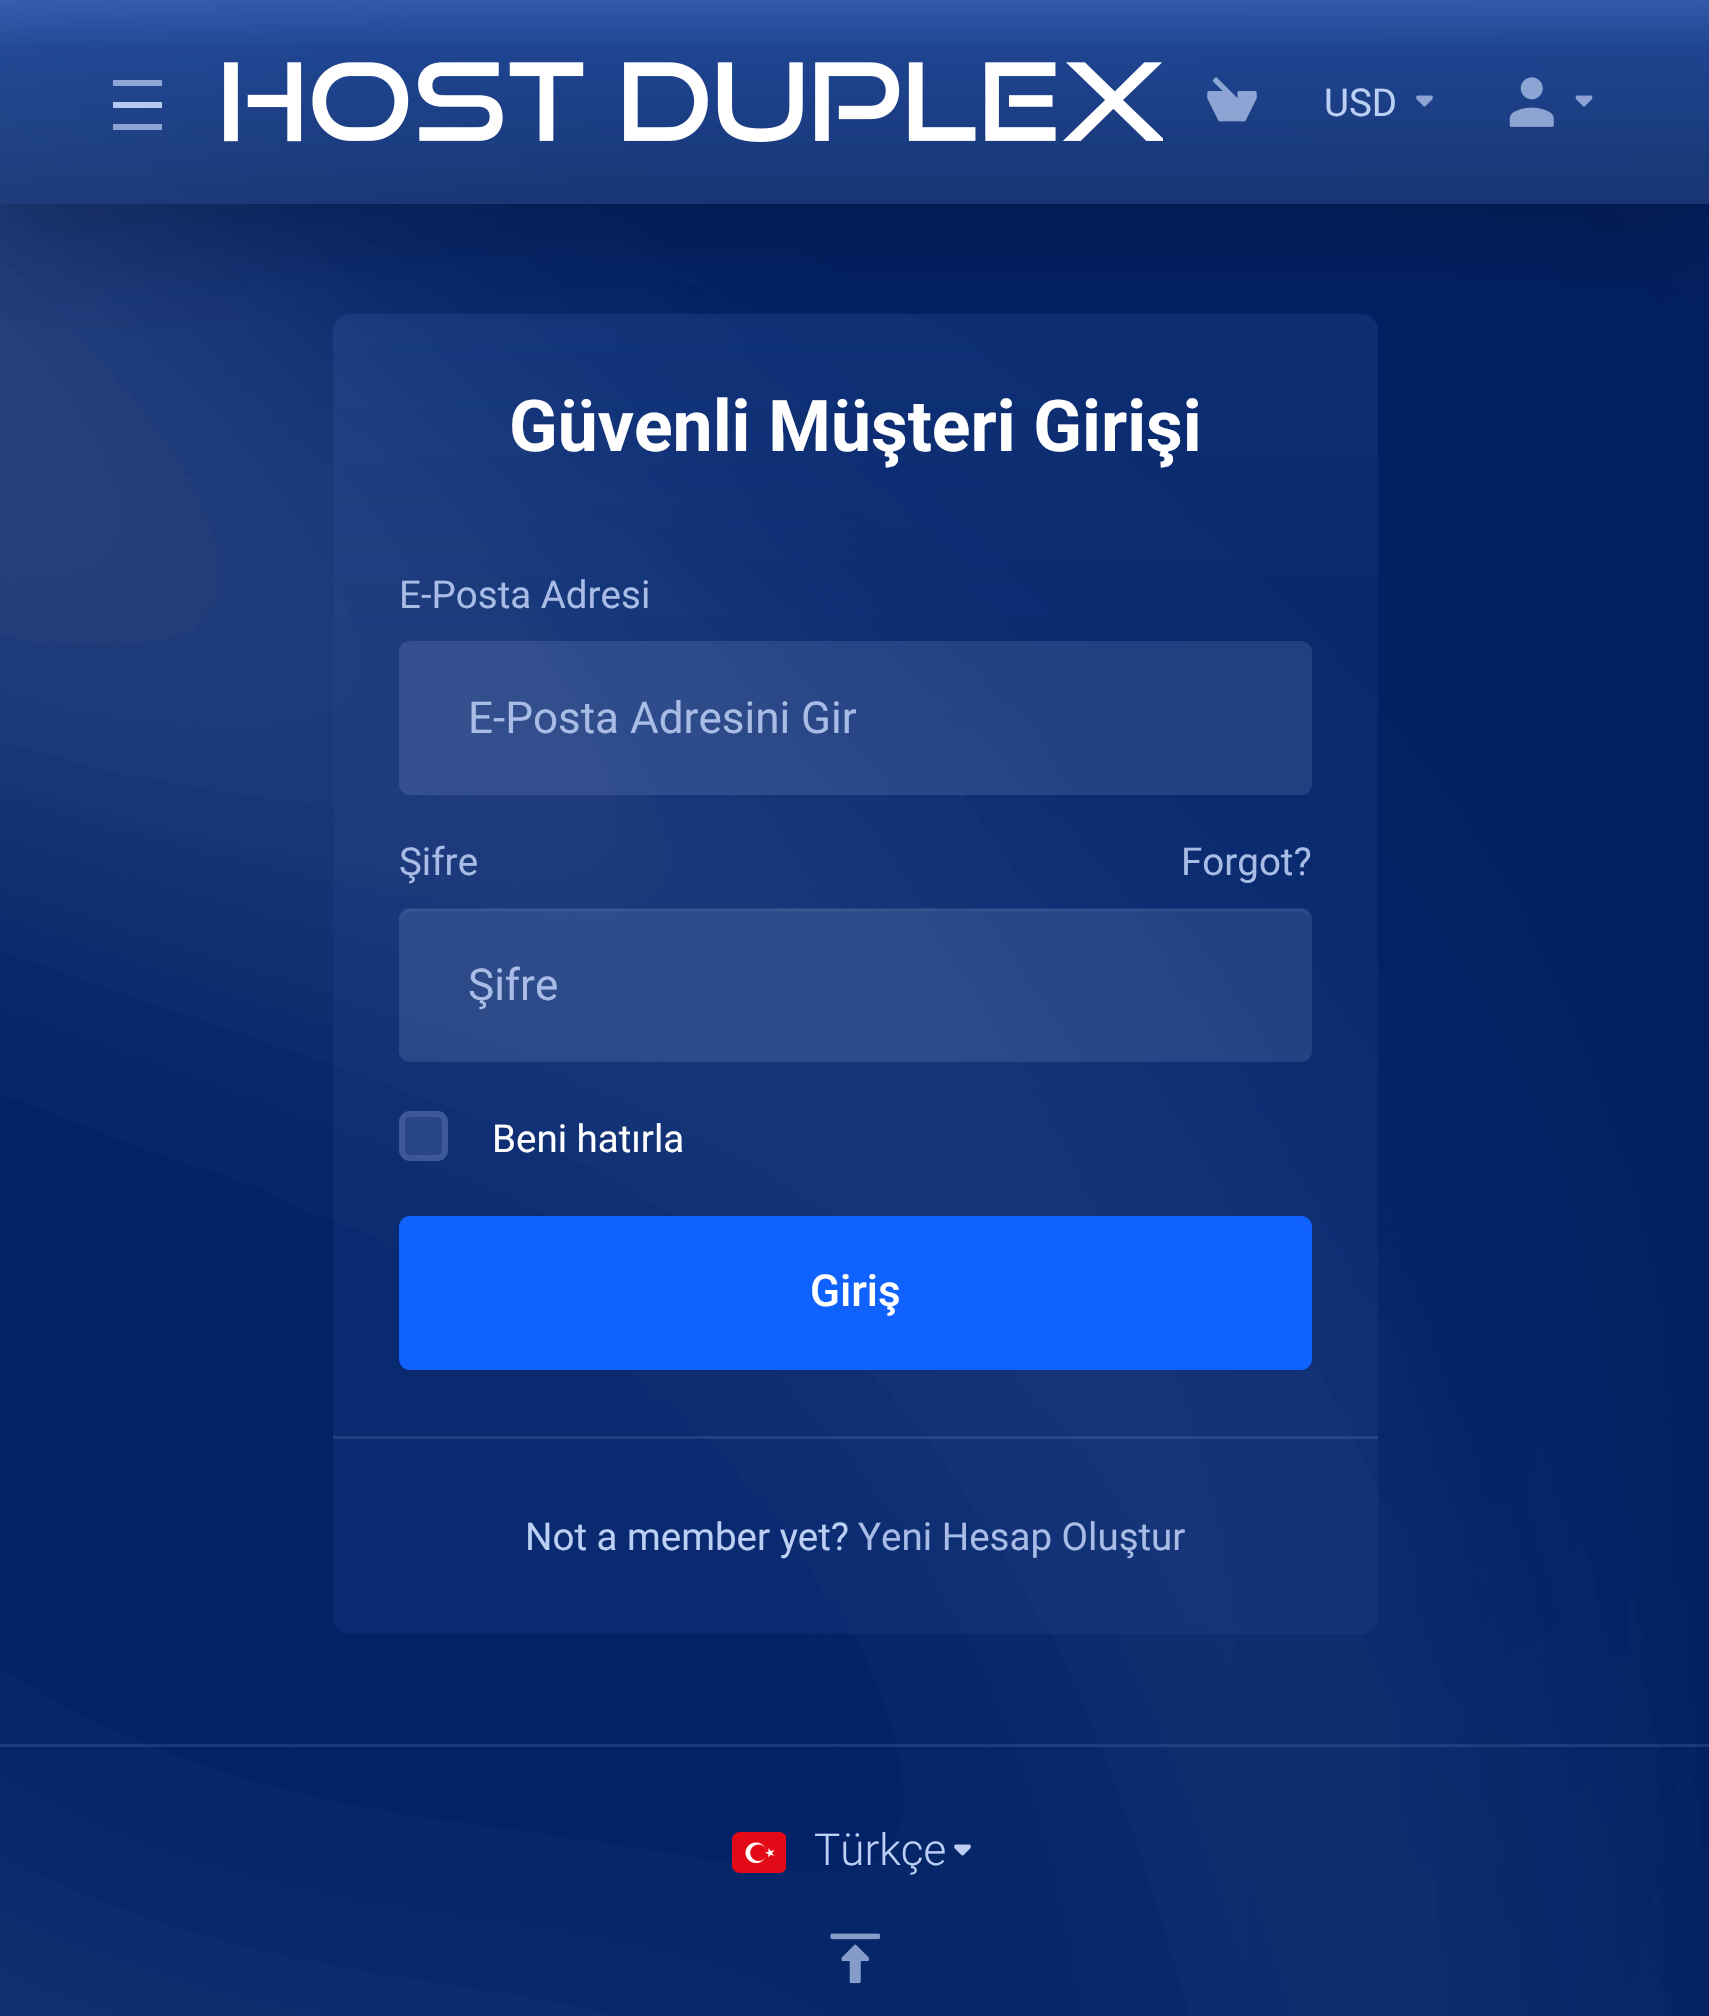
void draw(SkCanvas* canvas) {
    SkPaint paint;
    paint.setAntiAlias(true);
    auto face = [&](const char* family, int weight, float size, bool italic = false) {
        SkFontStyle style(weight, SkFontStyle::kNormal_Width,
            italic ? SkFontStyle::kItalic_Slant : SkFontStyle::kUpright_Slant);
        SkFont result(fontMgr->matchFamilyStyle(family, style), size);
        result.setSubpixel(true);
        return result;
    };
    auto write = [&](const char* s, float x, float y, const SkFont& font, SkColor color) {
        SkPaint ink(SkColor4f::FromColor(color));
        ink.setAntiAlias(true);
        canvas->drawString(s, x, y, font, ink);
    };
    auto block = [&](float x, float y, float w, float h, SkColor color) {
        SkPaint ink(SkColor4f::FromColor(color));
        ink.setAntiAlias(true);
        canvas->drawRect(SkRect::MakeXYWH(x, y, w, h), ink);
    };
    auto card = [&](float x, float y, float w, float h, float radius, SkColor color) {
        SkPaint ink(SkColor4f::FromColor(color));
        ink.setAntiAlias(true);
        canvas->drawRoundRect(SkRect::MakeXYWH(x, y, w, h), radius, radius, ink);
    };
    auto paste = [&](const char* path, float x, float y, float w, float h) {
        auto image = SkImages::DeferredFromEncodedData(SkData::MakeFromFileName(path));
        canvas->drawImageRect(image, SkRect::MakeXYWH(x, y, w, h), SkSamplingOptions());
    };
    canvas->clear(SkColorSetRGB(2, 34, 104));
    paste("pic1.png", 0, 0, 1709, 2016);
    {
        const SkColor colors[] = {SkColorSetARGB(41, 75, 120, 210), SkColorSetARGB(41, 41, 82, 163), SkColorSetARGB(41, 41, 82, 163)};
        const float stops[] = {0, 0.24f, 1};
        const SkPoint ends[] = {{855, 313}, {855, 1634}};
        paint.setShader(SkGradientShader::MakeLinear(ends, colors, stops, 3, SkTileMode::kClamp));
        paint.setAlpha(255);
    }
    canvas->drawRoundRect(SkRect::MakeXYWH(333, 314, 1045, 1320), 17, 17, paint);
    canvas->save();
    canvas->clipPath(SkPathBuilder(SkPathFillType::kEvenOdd).moveTo(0, 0).lineTo(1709, 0).lineTo(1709, 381).lineTo(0, 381).close().moveTo(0, 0).lineTo(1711, 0).lineTo(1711, 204).lineTo(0, 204).close().detach(), true);
    paint.setShader(nullptr);
    paint.setColor(SkColorSetARGB(41, 0, 0, 0));
    paint.setMaskFilter(SkMaskFilter::MakeBlur(kNormal_SkBlurStyle, 44));
    canvas->drawRect(SkRect::MakeXYWH(0, 44, 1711, 204), paint);
    paint.setMaskFilter(nullptr);
    canvas->restore();
    {
        const SkColor colors[] = {SkColorSetARGB(166, 75, 120, 210), SkColorSetARGB(184, 41, 82, 163), SkColorSetARGB(184, 31, 61, 122)};
        const float stops[] = {0, 0.24f, 1};
        const SkPoint ends[] = {{855, 0}, {855, 204}};
        paint.setShader(SkGradientShader::MakeLinear(ends, colors, stops, 3, SkTileMode::kClamp));
        paint.setAlpha(255);
    }
    canvas->drawRect(SkRect::MakeXYWH(0, 0, 1709, 204), paint);
    block(113, 80, 49, 6, SkColorSetRGB(142, 166, 214));
    block(113, 102, 49, 6, SkColorSetRGB(182, 201, 240));
    block(113, 124, 49, 6, SkColorSetRGB(141, 164, 211));
    paste("pic2.png", 224, 62, 939, 80);
    paste("pic3.png", 1207, 77, 50, 45);
    auto kFont1 = face("Roboto", 400, 38.5f);
    write("USD", 1324, 116, kFont1, SkColorSetRGB(188, 207, 244));
    paste("pic4.png", 1416, 95, 17, 12);
    paste("pic5.png", 1509, 77, 45, 50);
    paste("pic6.png", 1575, 95, 18, 12);
    auto kFont2 = face("Roboto", 700, 71.5f);
    write("Güvenli Müşteri Girişi", 509, 451, kFont2, SK_ColorWHITE);
    write("E-Posta Adresi", 399, 608, kFont1, SkColorSetRGB(168, 188, 229));
    card(402, 644, 907, 148, 8, SkColorSetARGB(31, 204, 221, 255));
    paint.setStyle(SkPaint::kStroke_Style);
    paint.setStrokeWidth(3);
    paint.setShader(nullptr);
    paint.setColor(SkColorSetARGB(31, 204, 221, 255));
    canvas->drawRoundRect(SkRect::MakeXYWH(400.5f, 642.5f, 910, 151), 9.5f, 9.5f, paint);
    auto kFont3 = face("Roboto", 400, 44);
    write("E-Posta Adresini Gir", 468, 733, kFont3, SkColorSetRGB(168, 188, 229));
    write("Şifre", 399, 875, kFont1, SkColorSetRGB(168, 188, 229));
    write("Forgot?", 1181, 875, kFont1, SkColorSetRGB(168, 188, 229));
    card(402, 910, 907, 149, 8, SkColorSetARGB(31, 204, 221, 255));
    canvas->drawRoundRect(SkRect::MakeXYWH(400.5f, 909.5f, 910, 151), 9.5f, 9.5f, paint);
    write("Şifre", 468, 1000, kFont3, SkColorSetRGB(168, 188, 229));
    card(399, 1111, 49, 50, 11, SkColorSetARGB(31, 204, 221, 255));
    paint.setStrokeWidth(6);
    canvas->drawRoundRect(SkRect::MakeXYWH(402, 1114, 43, 44), 8, 8, paint);
    write("Beni hatırla", 492, 1152, kFont1, SK_ColorWHITE);
    paint.setStyle(SkPaint::kFill_Style);
    paint.setColor(SkColorSetARGB(26, 0, 0, 0));
    paint.setMaskFilter(SkMaskFilter::MakeBlur(kNormal_SkBlurStyle, 1.5f));
    canvas->drawRoundRect(SkRect::MakeXYWH(399, 1216, 913, 154), 11, 11, paint);
    paint.setMaskFilter(nullptr);
    paint.setColor(SkColorSetRGB(16, 98, 254));
    canvas->drawRoundRect(SkRect::MakeXYWH(400.5f, 1217.5f, 910, 151), 9.5f, 9.5f, paint);
    paint.setStyle(SkPaint::kStroke_Style);
    paint.setStrokeWidth(3);
    canvas->drawRoundRect(SkRect::MakeXYWH(400.5f, 1217.5f, 910, 151), 9.5f, 9.5f, paint);
    auto kFont4 = face("Roboto", 500, 44);
    write("Giriş", 810, 1306, kFont4, SK_ColorWHITE);
    block(333, 1436, 1045, 3, SkColorSetARGB(31, 178, 204, 255));
    write("Not a member yet?", 525, 1550, kFont1, SkColorSetRGB(188, 207, 244));
    write("Yeni Hesap Oluştur", 858, 1550, kFont1, SkColorSetRGB(168, 188, 229));
    block(0, 1744, 1709, 3, SkColorSetARGB(31, 178, 204, 255));
    paste("pic7.png", 732, 1832, 54, 41);
    auto kFont5 = face("Roboto", 300, 44);
    write("Türkçe", 814, 1865, kFont5, SkColorSetRGB(188, 207, 244));
    paste("pic8.png", 954, 1844, 17, 12);
    paste("pic9.png", 830, 1933, 50, 51);
}
